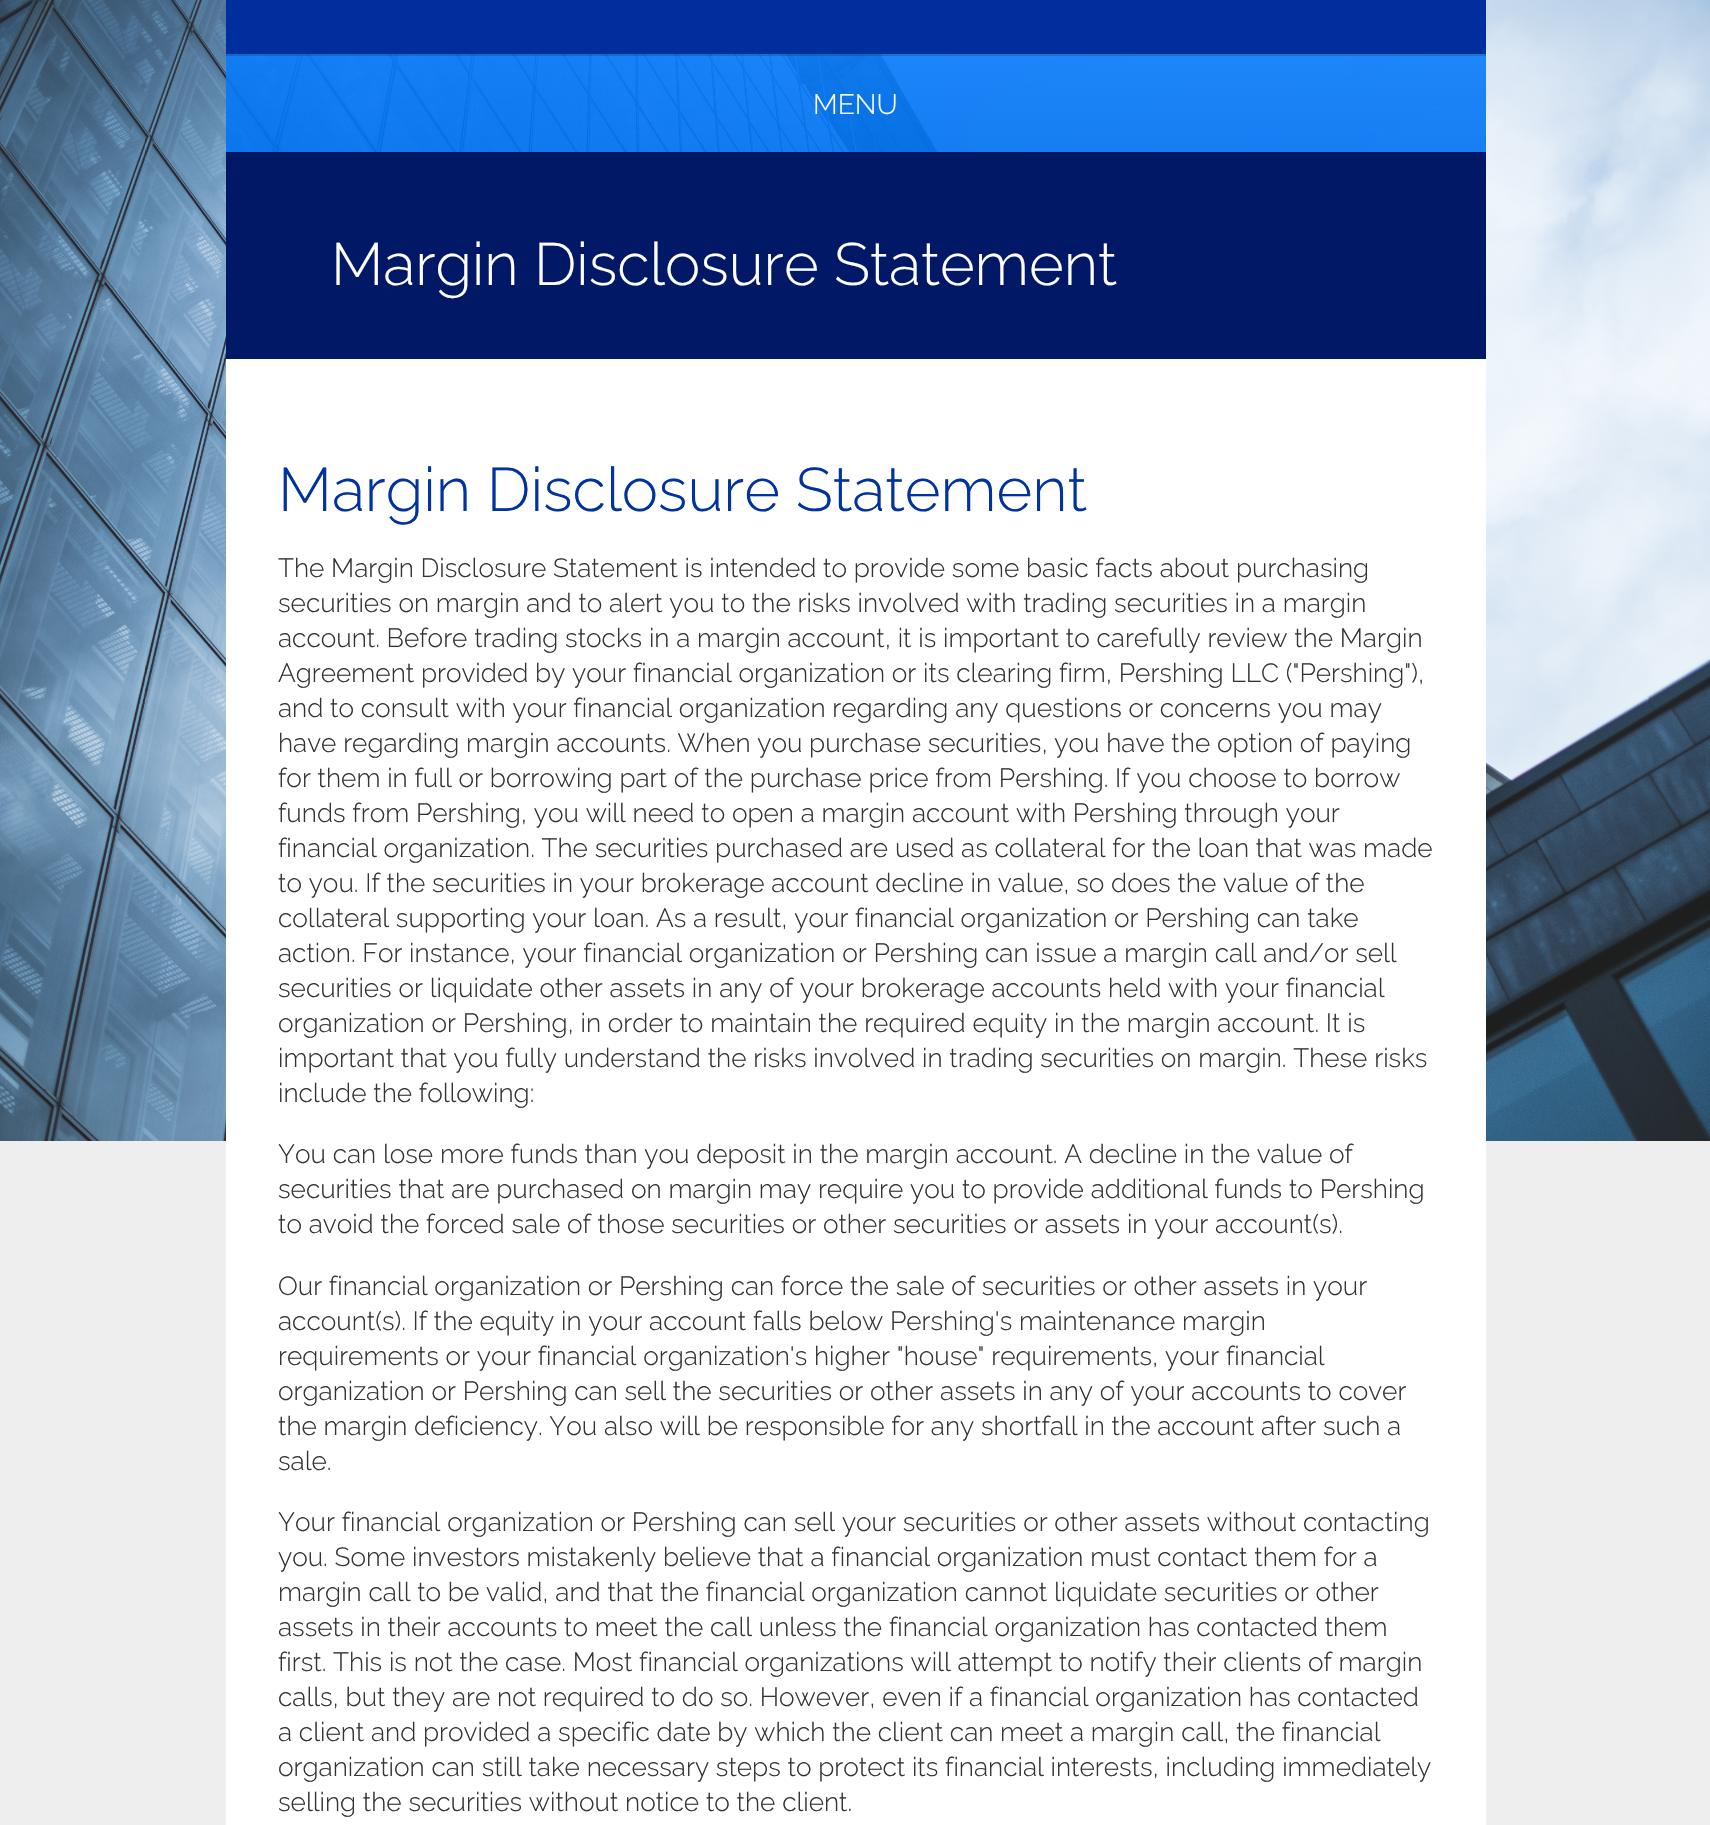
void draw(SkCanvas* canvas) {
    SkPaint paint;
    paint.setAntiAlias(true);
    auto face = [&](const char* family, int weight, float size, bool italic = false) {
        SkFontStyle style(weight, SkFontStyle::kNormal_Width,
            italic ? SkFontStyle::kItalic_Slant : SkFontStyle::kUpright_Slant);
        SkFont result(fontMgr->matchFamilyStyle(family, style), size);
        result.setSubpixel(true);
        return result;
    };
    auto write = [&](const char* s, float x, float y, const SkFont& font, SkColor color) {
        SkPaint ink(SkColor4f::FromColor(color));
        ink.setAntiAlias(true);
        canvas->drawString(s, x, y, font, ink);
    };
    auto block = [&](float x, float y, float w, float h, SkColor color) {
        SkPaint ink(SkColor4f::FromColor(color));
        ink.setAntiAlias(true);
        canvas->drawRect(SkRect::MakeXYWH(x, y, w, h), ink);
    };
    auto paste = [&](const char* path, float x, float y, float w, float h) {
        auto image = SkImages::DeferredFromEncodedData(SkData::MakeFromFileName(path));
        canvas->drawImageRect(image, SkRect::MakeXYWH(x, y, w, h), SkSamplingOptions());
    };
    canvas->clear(SkColorSetRGB(238, 238, 238));
    paste("pic1.png", 0, 0, 1710, 1141);
    block(226, 0, 1260, 54, SkColorSetRGB(0, 46, 157));
    block(226, 54, 1260, 98, SkColorSetARGB(230, 0, 119, 249));
    {
        const SkColor colors[] = {SkColorSetARGB(8, 0, 0, 0), SkColorSetARGB(8, 255, 255, 255)};
        const float stops[] = {0, 1};
        const SkPoint ends[] = {{856, 56}, {856, -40}};
        paint.setShader(SkGradientShader::MakeLinear(ends, colors, stops, 2, SkTileMode::kClamp));
        paint.setAlpha(255);
    }
    canvas->drawRect(SkRect::MakeXYWH(226, 54, 1260, 2), paint);
    {
        const SkColor colors[] = {SkColorSetARGB(8, 0, 0, 0), SkColorSetARGB(8, 255, 255, 255)};
        const float stops[] = {0, 1};
        const SkPoint ends[] = {{856, 152}, {856, 56}};
        paint.setShader(SkGradientShader::MakeLinear(ends, colors, stops, 2, SkTileMode::kClamp));
        paint.setAlpha(255);
    }
    canvas->drawRect(SkRect::MakeXYWH(226, 56, 1260, 96), paint);
    block(226, 54, 1260, 2, SkColorSetARGB(51, 56, 56, 56));
    auto kFont1 = face("Raleway", 300, 28);
    write("MENU", 813, 114, kFont1, SK_ColorWHITE);
    block(226, 152, 1260, 207, SkColorSetRGB(0, 24, 101));
    auto kFont2 = face("Raleway", 300, 59.5f);
    write("Margin Disclosure Statement", 331, 285, kFont2, SK_ColorWHITE);
    block(226, 359, 1260, 1466, SK_ColorWHITE);
    auto kFont3 = face("Raleway", 300, 61.25f);
    write("Margin Disclosure Statement", 278, 511, kFont3, SkColorSetRGB(0, 50, 160));
    auto kFont4 = face("Raleway", 300, 26.25f);
    write("The Margin Disclosure Statement is intended to provide some basic facts about purchasing", 278, 577, kFont4, SkColorSetRGB(51, 51, 51));
    write("securities on margin and to alert you to the risks involved with trading securities in a margin", 278, 612, kFont4, SkColorSetRGB(51, 51, 51));
    write("account. Before trading stocks in a margin account, it is important to carefully review the Margin", 278, 647, kFont4, SkColorSetRGB(51, 51, 51));
    write("Agreement provided by your financial organization or its clearing firm, Pershing LLC (\"Pershing\"),", 278, 682, kFont4, SkColorSetRGB(51, 51, 51));
    write("and to consult with your financial organization regarding any questions or concerns you may", 278, 717, kFont4, SkColorSetRGB(51, 51, 51));
    write("have regarding margin accounts. When you purchase securities, you have the option of paying", 278, 752, kFont4, SkColorSetRGB(51, 51, 51));
    write("for them in full or borrowing part of the purchase price from Pershing. If you choose to borrow", 278, 787, kFont4, SkColorSetRGB(51, 51, 51));
    write("funds from Pershing, you will need to open a margin account with Pershing through your", 278, 822, kFont4, SkColorSetRGB(51, 51, 51));
    write("financial organization. The securities purchased are used as collateral for the loan that was made", 278, 857, kFont4, SkColorSetRGB(51, 51, 51));
    write("to you. If the securities in your brokerage account decline in value, so does the value of the", 278, 892, kFont4, SkColorSetRGB(51, 51, 51));
    write("collateral supporting your loan. As a result, your financial organization or Pershing can take", 278, 927, kFont4, SkColorSetRGB(51, 51, 51));
    write("action. For instance, your financial organization or Pershing can issue a margin call and/or sell", 278, 962, kFont4, SkColorSetRGB(51, 51, 51));
    write("securities or liquidate other assets in any of your brokerage accounts held with your financial", 278, 997, kFont4, SkColorSetRGB(51, 51, 51));
    write("organization or Pershing, in order to maintain the required equity in the margin account. It is", 278, 1032, kFont4, SkColorSetRGB(51, 51, 51));
    write("important that you fully understand the risks involved in trading securities on margin. These risks", 278, 1067, kFont4, SkColorSetRGB(51, 51, 51));
    write("include the following:", 278, 1102, kFont4, SkColorSetRGB(51, 51, 51));
    write("You can lose more funds than you deposit in the margin account. A decline in the value of", 278, 1163, kFont4, SkColorSetRGB(51, 51, 51));
    write("securities that are purchased on margin may require you to provide additional funds to Pershing", 278, 1198, kFont4, SkColorSetRGB(51, 51, 51));
    write("to avoid the forced sale of those securities or other securities or assets in your account(s).", 278, 1233, kFont4, SkColorSetRGB(51, 51, 51));
    write("Our financial organization or Pershing can force the sale of securities or other assets in your", 278, 1295, kFont4, SkColorSetRGB(51, 51, 51));
    write("account(s). If the equity in your account falls below Pershing's maintenance margin", 278, 1330, kFont4, SkColorSetRGB(51, 51, 51));
    write("requirements or your financial organization's higher \"house\" requirements, your financial", 278, 1365, kFont4, SkColorSetRGB(51, 51, 51));
    write("organization or Pershing can sell the securities or other assets in any of your accounts to cover", 278, 1400, kFont4, SkColorSetRGB(51, 51, 51));
    write("the margin deficiency. You also will be responsible for any shortfall in the account after such a", 278, 1435, kFont4, SkColorSetRGB(51, 51, 51));
    write("sale.", 278, 1470, kFont4, SkColorSetRGB(51, 51, 51));
    write("Your financial organization or Pershing can sell your securities or other assets without contacting", 278, 1531, kFont4, SkColorSetRGB(51, 51, 51));
    write("you. Some investors mistakenly believe that a financial organization must contact them for a", 278, 1566, kFont4, SkColorSetRGB(51, 51, 51));
    write("margin call to be valid, and that the financial organization cannot liquidate securities or other", 278, 1601, kFont4, SkColorSetRGB(51, 51, 51));
    write("assets in their accounts to meet the call unless the financial organization has contacted them", 278, 1636, kFont4, SkColorSetRGB(51, 51, 51));
    write("first. This is not the case. Most financial organizations will attempt to notify their clients of margin", 278, 1671, kFont4, SkColorSetRGB(51, 51, 51));
    write("calls, but they are not required to do so. However, even if a financial organization has contacted", 278, 1706, kFont4, SkColorSetRGB(51, 51, 51));
    write("a client and provided a specific date by which the client can meet a margin call, the financial", 278, 1741, kFont4, SkColorSetRGB(51, 51, 51));
    write("organization can still take necessary steps to protect its financial interests, including immediately", 278, 1776, kFont4, SkColorSetRGB(51, 51, 51));
    write("selling the securities without notice to the client.", 278, 1811, kFont4, SkColorSetRGB(51, 51, 51));
}
